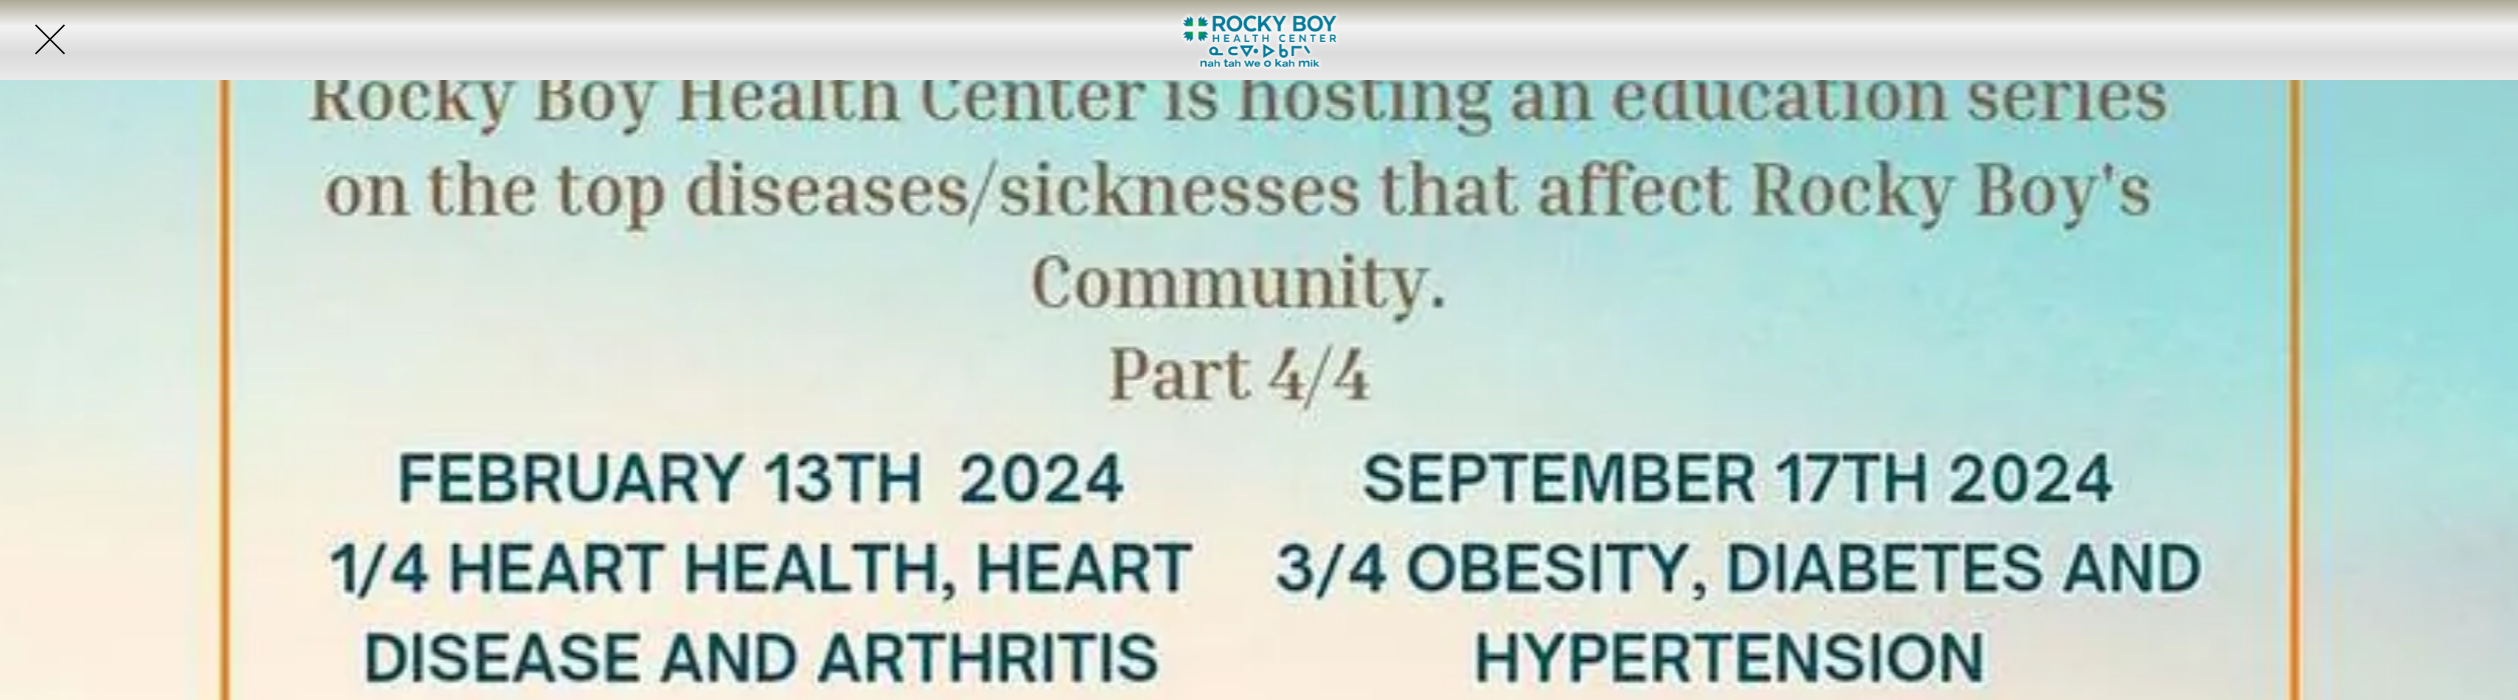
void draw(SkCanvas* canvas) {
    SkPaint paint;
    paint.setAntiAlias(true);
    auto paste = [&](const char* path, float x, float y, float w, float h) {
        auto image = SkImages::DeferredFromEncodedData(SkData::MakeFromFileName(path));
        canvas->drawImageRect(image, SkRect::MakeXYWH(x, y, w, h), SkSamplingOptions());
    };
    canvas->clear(SK_ColorWHITE);
    {
        const SkColor colors[] = {SkColorSetRGB(173, 169, 150), SkColorSetRGB(242, 242, 242), SkColorSetRGB(219, 219, 219), SkColorSetRGB(234, 234, 234)};
        const float stops[] = {0, 0.33f, 0.67f, 1};
        const SkPoint ends[] = {{1259, 0}, {1259, 80}};
        paint.setShader(SkGradientShader::MakeLinear(ends, colors, stops, 4, SkTileMode::kClamp));
        paint.setAlpha(255);
    }
    canvas->drawRect(SkRect::MakeXYWH(0, 0, 2518, 80), paint);
    paste("pic1.png", 35, 24, 30, 31);
    paste("pic2.png", 1181, 12, 158, 58);
    paste("pic3.png", 0, 80, 2518, 620);
}
